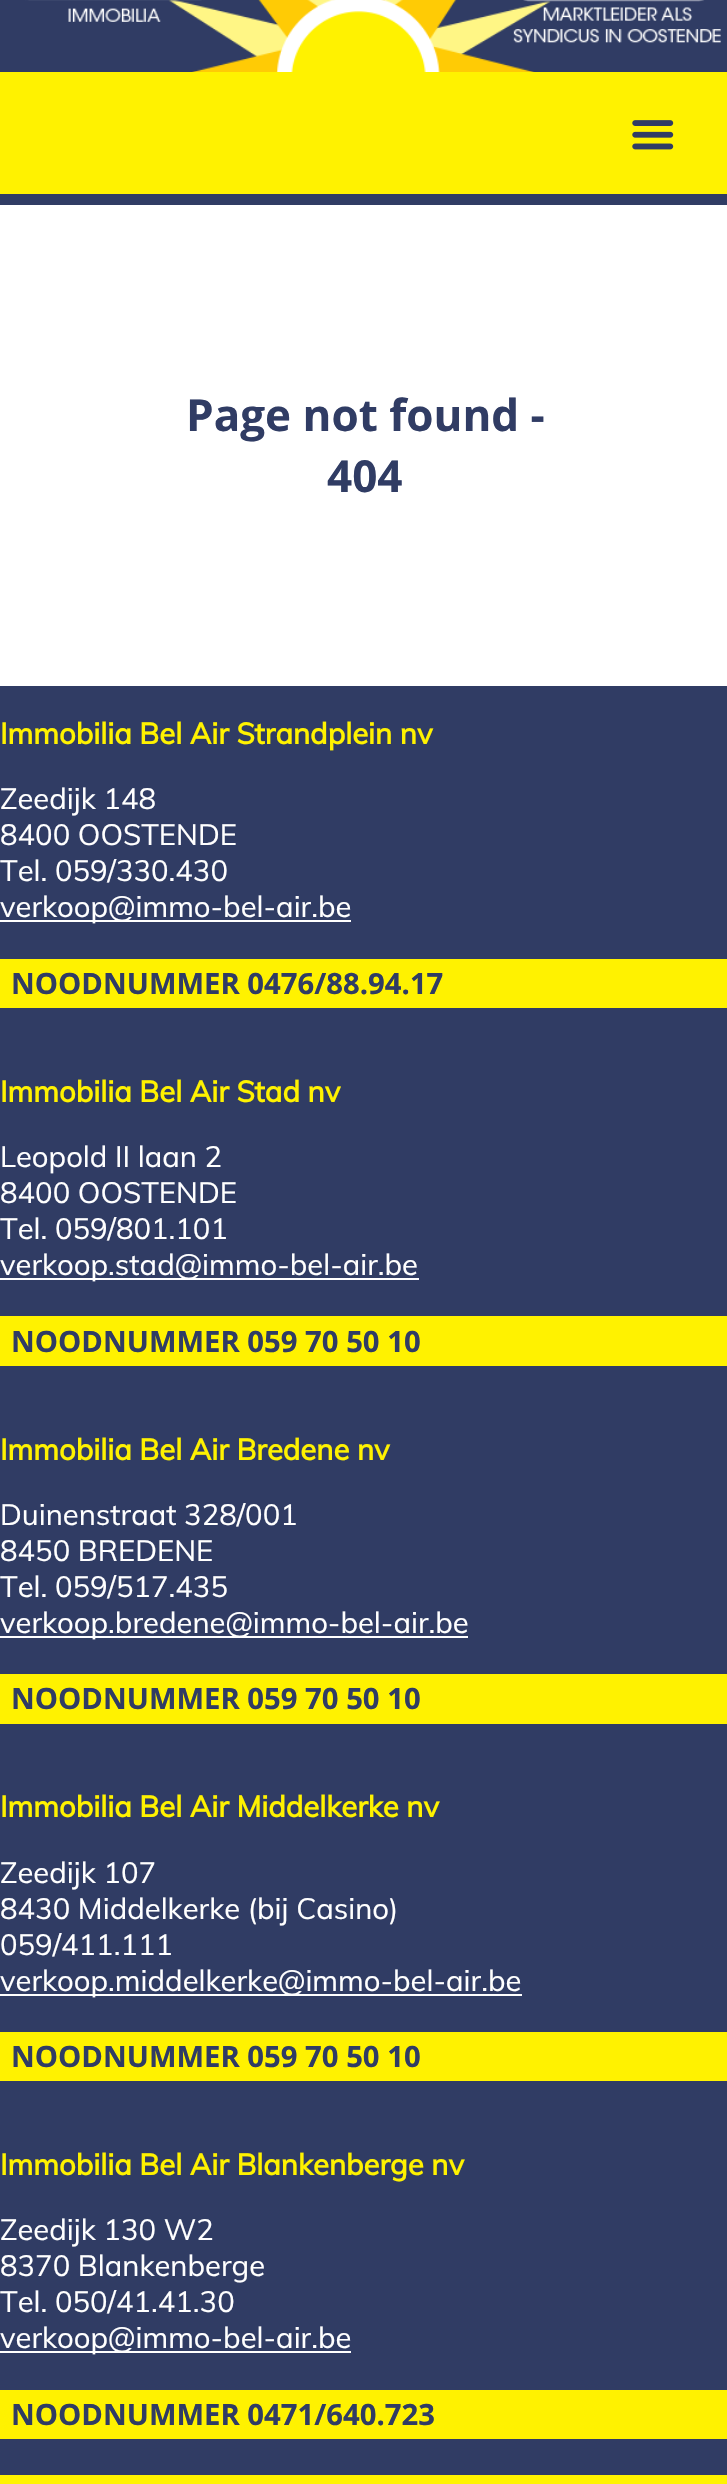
void draw(SkCanvas* canvas) {
    SkPaint paint;
    paint.setAntiAlias(true);
    auto face = [&](const char* family, int weight, float size, bool italic = false) {
        SkFontStyle style(weight, SkFontStyle::kNormal_Width,
            italic ? SkFontStyle::kItalic_Slant : SkFontStyle::kUpright_Slant);
        SkFont result(fontMgr->matchFamilyStyle(family, style), size);
        result.setSubpixel(true);
        return result;
    };
    auto write = [&](const char* s, float x, float y, const SkFont& font, SkColor color) {
        SkPaint ink(SkColor4f::FromColor(color));
        ink.setAntiAlias(true);
        canvas->drawString(s, x, y, font, ink);
    };
    auto block = [&](float x, float y, float w, float h, SkColor color) {
        SkPaint ink(SkColor4f::FromColor(color));
        ink.setAntiAlias(true);
        canvas->drawRect(SkRect::MakeXYWH(x, y, w, h), ink);
    };
    auto paste = [&](const char* path, float x, float y, float w, float h) {
        auto image = SkImages::DeferredFromEncodedData(SkData::MakeFromFileName(path));
        canvas->drawImageRect(image, SkRect::MakeXYWH(x, y, w, h), SkSamplingOptions());
    };
    canvas->clear(SK_ColorWHITE);
    paste("pic1.png", 0, 0, 727, 72);
    block(0, 72, 727, 122, SkColorSetRGB(255, 242, 0));
    block(0, 194, 727, 11, SkColorSetRGB(48, 60, 100));
    paste("pic2.png", 632, 120, 42, 30);
    auto kFont1 = face("Open Sans", 700, 44);
    write("Page not found -", 186, 431, kFont1, SkColorSetRGB(48, 60, 100));
    write("404", 327, 492, kFont1, SkColorSetRGB(48, 60, 100));
    block(0, 686, 727, 1789, SkColorSetRGB(48, 60, 100));
    auto kFont2 = face("Muli", 700, 29.25f);
    write("Immobilia Bel Air Strandplein nv", 0, 744, kFont2, SkColorSetRGB(255, 242, 0));
    auto kFont3 = face("Muli", 400, 29.25f);
    write("Zeedijk 148", 0, 809, kFont3, SK_ColorWHITE);
    write("8400 OOSTENDE", 0, 845, kFont3, SK_ColorWHITE);
    write("Tel. 059/330.430", 0, 881, kFont3, SK_ColorWHITE);
    block(0, 920, 351, 2, SK_ColorWHITE);
    write("verkoop@immo-bel-air.be", 0, 917, kFont3, SK_ColorWHITE);
    block(0, 959, 727, 49, SkColorSetRGB(255, 242, 0));
    auto kFont4 = face("Open Sans", 700, 29.25f);
    write("NOODNUMMER 0476/88.94.17", 11, 994, kFont4, SkColorSetRGB(48, 60, 100));
    write("Immobilia Bel Air Stad nv", 0, 1102, kFont2, SkColorSetRGB(255, 242, 0));
    write("Leopold II laan 2", 0, 1167, kFont3, SK_ColorWHITE);
    write("8400 OOSTENDE", 0, 1203, kFont3, SK_ColorWHITE);
    write("Tel. 059/801.101", 0, 1239, kFont3, SK_ColorWHITE);
    block(0, 1278, 419, 2, SK_ColorWHITE);
    write("verkoop.stad@immo-bel-air.be", 0, 1275, kFont3, SK_ColorWHITE);
    block(0, 1316, 727, 50, SkColorSetRGB(255, 242, 0));
    write("NOODNUMMER 059 70 50 10", 11, 1352, kFont4, SkColorSetRGB(48, 60, 100));
    write("Immobilia Bel Air Bredene nv", 0, 1460, kFont2, SkColorSetRGB(255, 242, 0));
    write("Duinenstraat 328/001", 0, 1525, kFont3, SK_ColorWHITE);
    write("8450 BREDENE", 0, 1561, kFont3, SK_ColorWHITE);
    write("Tel. 059/517.435", 0, 1597, kFont3, SK_ColorWHITE);
    block(0, 1636, 468, 2, SK_ColorWHITE);
    write("verkoop.bredene@immo-bel-air.be", 0, 1633, kFont3, SK_ColorWHITE);
    block(0, 1674, 727, 50, SkColorSetRGB(255, 242, 0));
    write("NOODNUMMER 059 70 50 10", 11, 1709, kFont4, SkColorSetRGB(48, 60, 100));
    write("Immobilia Bel Air Middelkerke nv", 0, 1817, kFont2, SkColorSetRGB(255, 242, 0));
    write("Zeedijk 107", 0, 1883, kFont3, SK_ColorWHITE);
    write("8430 Middelkerke (bij Casino)", 0, 1919, kFont3, SK_ColorWHITE);
    write("059/411.111", 0, 1955, kFont3, SK_ColorWHITE);
    block(0, 1994, 522, 2, SK_ColorWHITE);
    write("verkoop.middelkerke@immo-bel-air.be", 0, 1991, kFont3, SK_ColorWHITE);
    block(0, 2032, 727, 49, SkColorSetRGB(255, 242, 0));
    write("NOODNUMMER 059 70 50 10", 11, 2067, kFont4, SkColorSetRGB(48, 60, 100));
    write("Immobilia Bel Air Blankenberge nv", 0, 2175, kFont2, SkColorSetRGB(255, 242, 0));
    write("Zeedijk 130 W2", 0, 2240, kFont3, SK_ColorWHITE);
    write("8370 Blankenberge", 0, 2276, kFont3, SK_ColorWHITE);
    write("Tel. 050/41.41.30", 0, 2312, kFont3, SK_ColorWHITE);
    block(0, 2351, 351, 2, SK_ColorWHITE);
    write("verkoop@immo-bel-air.be", 0, 2348, kFont3, SK_ColorWHITE);
    block(0, 2390, 727, 49, SkColorSetRGB(255, 242, 0));
    write("NOODNUMMER 0471/640.723", 11, 2425, kFont4, SkColorSetRGB(48, 60, 100));
    block(0, 2475, 727, 9, SkColorSetRGB(255, 242, 0));
}
